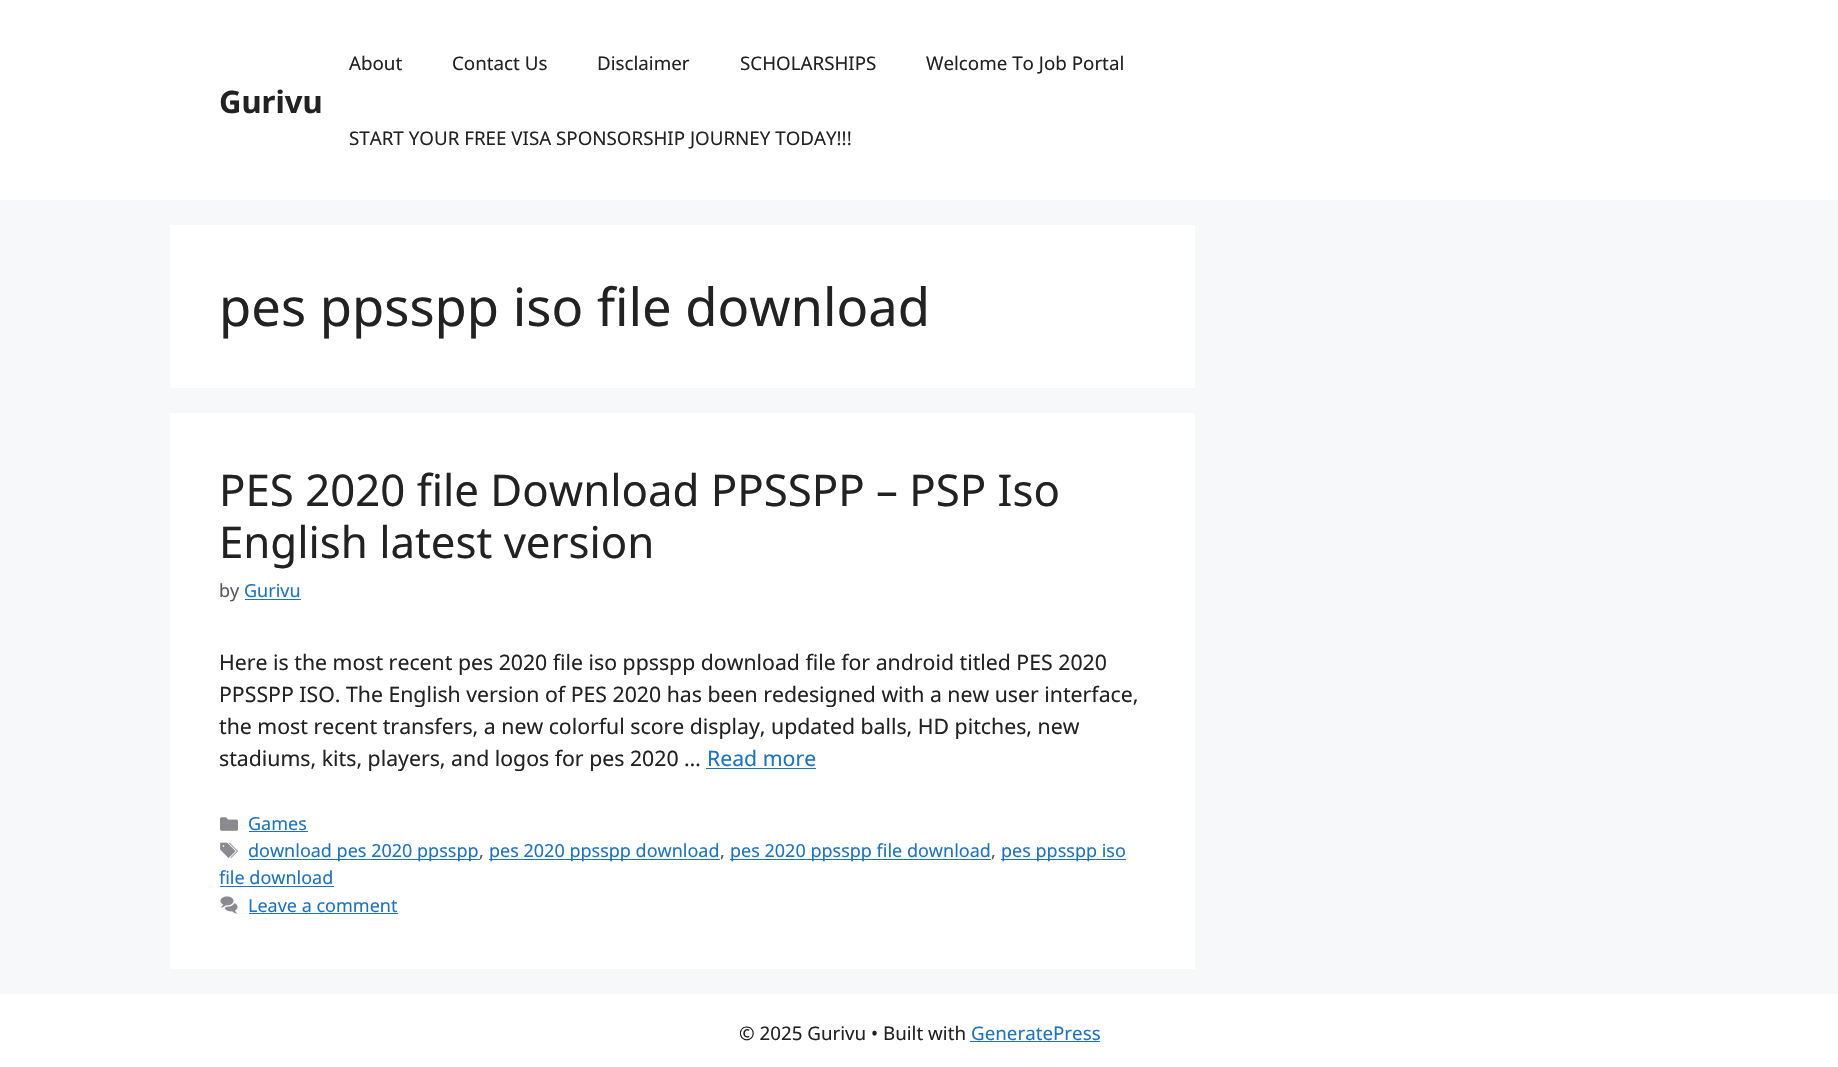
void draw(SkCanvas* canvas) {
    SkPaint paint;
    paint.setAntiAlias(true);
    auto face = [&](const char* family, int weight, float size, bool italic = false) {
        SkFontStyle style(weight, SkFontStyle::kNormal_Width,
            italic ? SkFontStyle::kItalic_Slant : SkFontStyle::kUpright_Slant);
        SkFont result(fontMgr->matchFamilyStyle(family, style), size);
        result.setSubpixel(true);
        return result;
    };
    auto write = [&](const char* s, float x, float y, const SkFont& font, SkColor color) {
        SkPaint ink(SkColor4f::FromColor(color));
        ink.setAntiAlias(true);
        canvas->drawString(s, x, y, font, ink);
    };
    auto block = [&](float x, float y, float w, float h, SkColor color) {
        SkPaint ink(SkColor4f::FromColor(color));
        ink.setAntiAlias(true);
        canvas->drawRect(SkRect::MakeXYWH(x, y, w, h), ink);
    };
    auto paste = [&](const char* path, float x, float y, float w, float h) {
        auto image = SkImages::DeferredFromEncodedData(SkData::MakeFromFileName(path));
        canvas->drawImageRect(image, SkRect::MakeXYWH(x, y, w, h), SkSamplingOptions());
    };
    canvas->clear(SkColorSetRGB(247, 248, 249));
    block(0, 0, 1838, 200, SK_ColorWHITE);
    auto kFont1 = face("Noto Sans", 700, 31);
    write("Gurivu", 219, 113, kFont1, SkColorSetRGB(34, 34, 34));
    auto kFont2 = face("Noto Sans", 400, 18.75f);
    write("About", 349, 70, kFont2, SkColorSetRGB(34, 34, 34));
    write("Contact Us", 452, 70, kFont2, SkColorSetRGB(34, 34, 34));
    write("Disclaimer", 597, 70, kFont2, SkColorSetRGB(34, 34, 34));
    write("SCHOLARSHIPS", 740, 70, kFont2, SkColorSetRGB(34, 34, 34));
    write("Welcome To Job Portal", 926, 70, kFont2, SkColorSetRGB(34, 34, 34));
    write("START YOUR FREE VISA SPONSORSHIP JOURNEY TODAY!!!", 349, 145, kFont2, SkColorSetRGB(34, 34, 34));
    block(170, 225, 1025, 163, SK_ColorWHITE);
    auto kFont3 = face("Noto Sans", 400, 52.5f);
    write("pes ppsspp iso file download", 219, 326, kFont3, SkColorSetRGB(34, 34, 34));
    block(170, 413, 1025, 556, SK_ColorWHITE);
    auto kFont4 = face("Noto Sans", 400, 43.75f);
    write("PES 2020 file Download PPSSPP – PSP Iso", 219, 506, kFont4, SkColorSetRGB(34, 34, 34));
    write("English latest version", 219, 558, kFont4, SkColorSetRGB(34, 34, 34));
    auto kFont5 = face("Noto Sans", 400, 18);
    write("by", 219, 597, kFont5, SkColorSetRGB(87, 87, 96));
    write("Gurivu", 244, 597, kFont5, SkColorSetRGB(30, 115, 190));
    block(245, 599, 56, 1, SkColorSetRGB(30, 115, 190));
    auto kFont6 = face("Noto Sans", 400, 21.25f);
    write("Here is the most recent pes 2020 file iso ppsspp download file for android titled PES 2020", 219, 670, kFont6, SkColorSetRGB(34, 34, 34));
    write("PPSSPP ISO. The English version of PES 2020 has been redesigned with a new user interface,", 219, 702, kFont6, SkColorSetRGB(34, 34, 34));
    write("the most recent transfers, a new colorful score display, updated balls, HD pitches, new", 219, 734, kFont6, SkColorSetRGB(34, 34, 34));
    write("stadiums, kits, players, and logos for pes 2020 …", 219, 766, kFont6, SkColorSetRGB(34, 34, 34));
    write("Read more", 707, 766, kFont6, SkColorSetRGB(30, 115, 190));
    block(706, 768, 110, 1, SkColorSetRGB(30, 115, 190));
    paste("pic1.png", 220, 817, 18, 14);
    write("Games", 248, 830, kFont5, SkColorSetRGB(30, 115, 190));
    block(249, 831, 59, 1, SkColorSetRGB(30, 115, 190));
    paste("pic2.png", 220, 842, 18, 16);
    block(249, 859, 231, 1, SkColorSetRGB(30, 115, 190));
    write("download pes 2020 ppsspp", 248, 857, kFont5, SkColorSetRGB(30, 115, 190));
    write(",", 479, 857, kFont5, SkColorSetRGB(87, 87, 96));
    block(489, 859, 231, 1, SkColorSetRGB(30, 115, 190));
    write("pes 2020 ppsspp download", 489, 857, kFont5, SkColorSetRGB(30, 115, 190));
    write(",", 720, 857, kFont5, SkColorSetRGB(87, 87, 96));
    block(730, 859, 261, 1, SkColorSetRGB(30, 115, 190));
    write("pes 2020 ppsspp file download", 730, 857, kFont5, SkColorSetRGB(30, 115, 190));
    write(",", 991, 857, kFont5, SkColorSetRGB(87, 87, 96));
    block(1001, 859, 125, 1, SkColorSetRGB(30, 115, 190));
    write("pes ppsspp iso", 1001, 857, kFont5, SkColorSetRGB(30, 115, 190));
    write("file download", 219, 884, kFont5, SkColorSetRGB(30, 115, 190));
    block(220, 886, 114, 1, SkColorSetRGB(30, 115, 190));
    paste("pic3.png", 220, 896, 18, 18);
    write("Leave a comment", 248, 912, kFont5, SkColorSetRGB(30, 115, 190));
    block(249, 913, 149, 1, SkColorSetRGB(30, 115, 190));
    block(0, 994, 1838, 73, SK_ColorWHITE);
    write("© 2025 Gurivu • Built with", 739, 1040, kFont2, SkColorSetRGB(34, 34, 34));
    write("GeneratePress", 971, 1040, kFont2, SkColorSetRGB(30, 115, 190));
    block(970, 1041, 130, 1, SkColorSetRGB(30, 115, 190));
}
